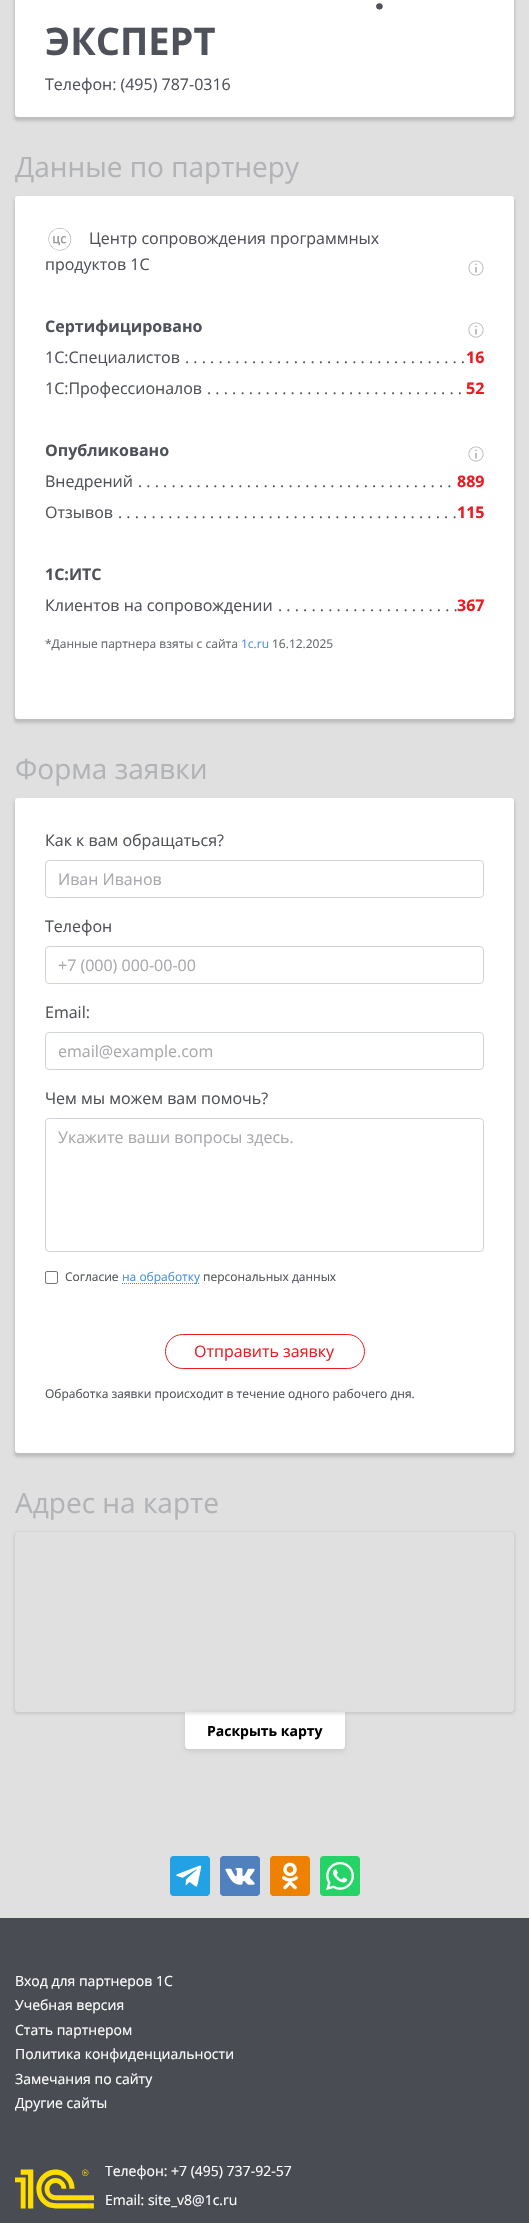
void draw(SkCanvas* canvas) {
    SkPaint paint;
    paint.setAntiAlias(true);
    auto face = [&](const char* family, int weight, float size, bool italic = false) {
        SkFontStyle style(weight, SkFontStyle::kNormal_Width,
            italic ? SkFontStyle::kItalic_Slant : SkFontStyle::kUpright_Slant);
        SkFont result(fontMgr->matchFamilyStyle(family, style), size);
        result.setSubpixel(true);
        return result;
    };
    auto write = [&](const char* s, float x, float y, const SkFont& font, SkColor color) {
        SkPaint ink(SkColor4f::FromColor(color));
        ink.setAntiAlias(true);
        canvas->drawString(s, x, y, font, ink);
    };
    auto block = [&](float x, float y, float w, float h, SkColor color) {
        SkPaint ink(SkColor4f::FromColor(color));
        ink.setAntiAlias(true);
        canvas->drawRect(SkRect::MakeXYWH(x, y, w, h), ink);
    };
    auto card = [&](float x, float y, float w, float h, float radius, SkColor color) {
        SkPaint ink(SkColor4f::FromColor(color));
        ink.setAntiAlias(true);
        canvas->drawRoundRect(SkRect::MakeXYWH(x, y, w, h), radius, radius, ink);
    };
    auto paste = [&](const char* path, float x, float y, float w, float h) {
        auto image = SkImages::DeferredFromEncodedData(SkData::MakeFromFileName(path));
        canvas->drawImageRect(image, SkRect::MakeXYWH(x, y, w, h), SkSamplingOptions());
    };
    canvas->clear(SkColorSetRGB(224, 224, 224));
    paint.setColor(SkColorSetARGB(38, 0, 0, 0));
    paint.setMaskFilter(SkMaskFilter::MakeBlur(kNormal_SkBlurStyle, 1.5f));
    canvas->drawRoundRect(SkRect::MakeXYWH(14, -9, 501, 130), 4, 4, paint);
    paint.setMaskFilter(nullptr);
    card(15, -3, 499, 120, 3, SK_ColorWHITE);
    auto kFont1 = face("Open Sans", 700, 38);
    write(".", 374, 9, kFont1, SkColorSetRGB(80, 82, 91));
    write("ЭКСПЕРТ", 45, 55, kFont1, SkColorSetRGB(80, 82, 91));
    auto kFont2 = face("Open Sans", 400, 16);
    write("Телефон: (495) 787-0316", 45, 90, kFont2, SkColorSetRGB(80, 82, 91));
    auto kFont3 = face("Open Sans", 400, 28);
    write("Данные по партнеру", 15, 177, kFont3, SkColorSetRGB(177, 179, 183));
    paint.setMaskFilter(SkMaskFilter::MakeBlur(kNormal_SkBlurStyle, 1.5f));
    canvas->drawRoundRect(SkRect::MakeXYWH(14, 198, 501, 525), 4, 4, paint);
    paint.setMaskFilter(nullptr);
    card(15, 196, 499, 523, 3, SK_ColorWHITE);
    paste("pic1.png", 48, 228, 24, 23);
    write("Центр сопровождения программных", 89, 244, kFont2, SkColorSetRGB(80, 82, 91));
    write("продуктов 1С", 45, 270, kFont2, SkColorSetRGB(80, 82, 91));
    paste("pic2.png", 468, 260, 16, 16);
    auto kFont4 = face("Open Sans", 700, 16);
    write("Сертифицировано", 45, 332, kFont4, SkColorSetRGB(80, 82, 91));
    paste("pic2.png", 468, 322, 16, 16);
    write("1С:Специалистов", 45, 363, kFont2, SkColorSetRGB(80, 82, 91));
    write(". . . . . . . . . . . . . . . . . . . . . . . . . . . . . . . . . .", 185, 363, kFont2, SkColorSetRGB(80, 82, 91));
    write("16", 466, 363, kFont4, SkColorSetRGB(237, 28, 36));
    write("1С:Профессионалов", 45, 394, kFont2, SkColorSetRGB(80, 82, 91));
    write(". . . . . . . . . . . . . . . . . . . . . . . . . . . . . . .", 207, 394, kFont2, SkColorSetRGB(80, 82, 91));
    write("52", 466, 394, kFont4, SkColorSetRGB(237, 28, 36));
    write("Опубликовано", 45, 456, kFont4, SkColorSetRGB(80, 82, 91));
    paste("pic2.png", 468, 446, 16, 16);
    write("Внедрений", 45, 487, kFont2, SkColorSetRGB(80, 82, 91));
    write(". . . . . . . . . . . . . . . . . . . . . . . . . . . . . . . . . . . . . .", 138, 487, kFont2, SkColorSetRGB(80, 82, 91));
    write("889", 457, 487, kFont4, SkColorSetRGB(237, 28, 36));
    write("Отзывов", 45, 518, kFont2, SkColorSetRGB(80, 82, 91));
    write(". . . . . . . . . . . . . . . . . . . . . . . . . . . . . . . . . . . . . . . . .", 118, 518, kFont2, SkColorSetRGB(80, 82, 91));
    write("115", 457, 518, kFont4, SkColorSetRGB(237, 28, 36));
    write("1С:ИТС", 45, 580, kFont4, SkColorSetRGB(80, 82, 91));
    write("Клиентов на сопровождении", 45, 611, kFont2, SkColorSetRGB(80, 82, 91));
    write(". . . . . . . . . . . . . . . . . . . . . .", 278, 611, kFont2, SkColorSetRGB(80, 82, 91));
    write("367", 457, 611, kFont4, SkColorSetRGB(237, 28, 36));
    auto kFont5 = face("Open Sans", 400, 12);
    write("*Данные партнера взяты с сайта", 45, 648, kFont5, SkColorSetRGB(100, 103, 112));
    write("1c.ru", 241, 648, kFont5, SkColorSetRGB(74, 144, 226));
    write("16.12.2025", 272, 648, kFont5, SkColorSetRGB(100, 103, 112));
    write("Форма заявки", 15, 779, kFont3, SkColorSetRGB(177, 179, 183));
    paint.setMaskFilter(SkMaskFilter::MakeBlur(kNormal_SkBlurStyle, 1.5f));
    canvas->drawRoundRect(SkRect::MakeXYWH(14, 800, 501, 657), 4, 4, paint);
    paint.setMaskFilter(nullptr);
    card(15, 798, 499, 655, 3, SK_ColorWHITE);
    write("Как к вам обращаться?", 45, 846, kFont2, SkColorSetRGB(80, 82, 91));
    paint.setStyle(SkPaint::kStroke_Style);
    paint.setStrokeWidth(1);
    paint.setColor(SkColorSetRGB(206, 212, 218));
    canvas->drawRoundRect(SkRect::MakeXYWH(45.5f, 860.5f, 438, 37), 3.5f, 3.5f, paint);
    write("Иван Иванов", 58, 885, kFont2, SkColorSetRGB(168, 169, 174));
    write("Телефон", 45, 932, kFont2, SkColorSetRGB(80, 82, 91));
    canvas->drawRoundRect(SkRect::MakeXYWH(45.5f, 946.5f, 438, 37), 3.5f, 3.5f, paint);
    write("+7 (000) 000-00-00", 58, 971, kFont2, SkColorSetRGB(168, 169, 174));
    write("Email:", 45, 1018, kFont2, SkColorSetRGB(80, 82, 91));
    canvas->drawRoundRect(SkRect::MakeXYWH(45.5f, 1032.5f, 438, 37), 3.5f, 3.5f, paint);
    write("email@example.com", 58, 1057, kFont2, SkColorSetRGB(168, 169, 174));
    write("Чем мы можем вам помочь?", 45, 1104, kFont2, SkColorSetRGB(80, 82, 91));
    canvas->drawRoundRect(SkRect::MakeXYWH(45.5f, 1118.5f, 438, 133), 3.5f, 3.5f, paint);
    write("Укажите ваши вопросы здесь.", 58, 1143, kFont2, SkColorSetRGB(168, 169, 174));
    paint.setColor(SkColorSetRGB(118, 118, 118));
    canvas->drawRoundRect(SkRect::MakeXYWH(45.5f, 1271.5f, 12, 12), 1.5f, 1.5f, paint);
    write("Согласие", 65, 1281, kFont5, SkColorSetRGB(80, 82, 91));
    paint.setColor(SkColorSetRGB(74, 144, 226));
    paint.setPathEffect(SkDashPathEffect::Make({{1, 1}}, 0));
    canvas->drawPath(SkPathBuilder().moveTo(122, 1283.5f).lineTo(200, 1283.5f).detach(), paint);
    paint.setPathEffect(nullptr);
    write("на обработку", 122, 1281, kFont5, SkColorSetRGB(74, 144, 226));
    write("персональных данных", 203, 1281, kFont5, SkColorSetRGB(80, 82, 91));
    paint.setColor(SkColorSetRGB(237, 28, 36));
    canvas->drawRoundRect(SkRect::MakeXYWH(165.5f, 1334.5f, 199, 34), 17, 17, paint);
    write("Отправить заявку", 194, 1357, kFont2, SkColorSetRGB(237, 28, 36));
    write("Обработка заявки происходит в течение одного рабочего дня.", 45, 1398, kFont5, SkColorSetRGB(80, 82, 91));
    write("Адрес на карте", 15, 1513, kFont3, SkColorSetRGB(177, 179, 183));
    paint.setStyle(SkPaint::kFill_Style);
    paint.setColor(SkColorSetARGB(26, 0, 0, 0));
    paint.setMaskFilter(SkMaskFilter::MakeBlur(kNormal_SkBlurStyle, 2.5f));
    canvas->drawRoundRect(SkRect::MakeXYWH(185, 1714, 160, 37), 3, 3, paint);
    paint.setMaskFilter(nullptr);
    paint.setColor(SK_ColorWHITE);
    canvas->drawPath(SkPathBuilder().moveTo(185, 1712).lineTo(345, 1712).lineTo(345, 1746).cubicTo(345, 1747.5f, 343.5f, 1749, 342, 1749).lineTo(188, 1749).cubicTo(186.5f, 1749, 185, 1747.5f, 185, 1746).close().detach(), paint);
    canvas->save();
    canvas->clipPath(SkPathBuilder(SkPathFillType::kEvenOdd).moveTo(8, 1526).lineTo(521, 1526).lineTo(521, 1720).lineTo(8, 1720).close().moveTo(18, 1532).lineTo(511, 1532).cubicTo(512.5f, 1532, 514, 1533.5f, 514, 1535).lineTo(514, 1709).cubicTo(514, 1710.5f, 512.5f, 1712, 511, 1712).lineTo(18, 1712).cubicTo(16.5f, 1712, 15, 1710.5f, 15, 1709).lineTo(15, 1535).cubicTo(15, 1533.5f, 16.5f, 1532, 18, 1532).close().detach(), true);
    paint.setColor(SkColorSetARGB(26, 0, 0, 0));
    paint.setMaskFilter(SkMaskFilter::MakeBlur(kNormal_SkBlurStyle, 1.5f));
    canvas->drawRoundRect(SkRect::MakeXYWH(14, 1532, 501, 182), 4, 4, paint);
    paint.setMaskFilter(nullptr);
    canvas->restore();
    auto kFont6 = face("Open Sans", 700, 14);
    write("Раскрыть карту", 207, 1736, kFont6, SK_ColorBLACK);
    paste("pic3.png", 170, 1856, 40, 40);
    paste("pic4.png", 220, 1856, 40, 40);
    paste("pic5.png", 270, 1856, 40, 40);
    paste("pic6.png", 320, 1856, 40, 40);
    block(0, 1918, 529, 305, SkColorSetRGB(74, 76, 83));
    auto kFont7 = face("Open Sans", 400, 14);
    write("Вход для партнеров 1С", 15, 1986, kFont7, SK_ColorWHITE);
    write("Учебная версия", 15, 2010, kFont7, SK_ColorWHITE);
    write("Стать партнером", 15, 2035, kFont7, SK_ColorWHITE);
    write("Политика конфиденциальности", 15, 2059, kFont7, SK_ColorWHITE);
    write("Замечания по сайту", 15, 2084, kFont7, SK_ColorWHITE);
    write("Другие сайты", 15, 2108, kFont7, SK_ColorWHITE);
    paste("pic7.png", 15, 2169, 79, 40);
    write("Телефон: +7 (495) 737-92-57", 105, 2176, kFont7, SK_ColorWHITE);
    write("Email: site_v8@1c.ru", 105, 2205, kFont7, SK_ColorWHITE);
}
